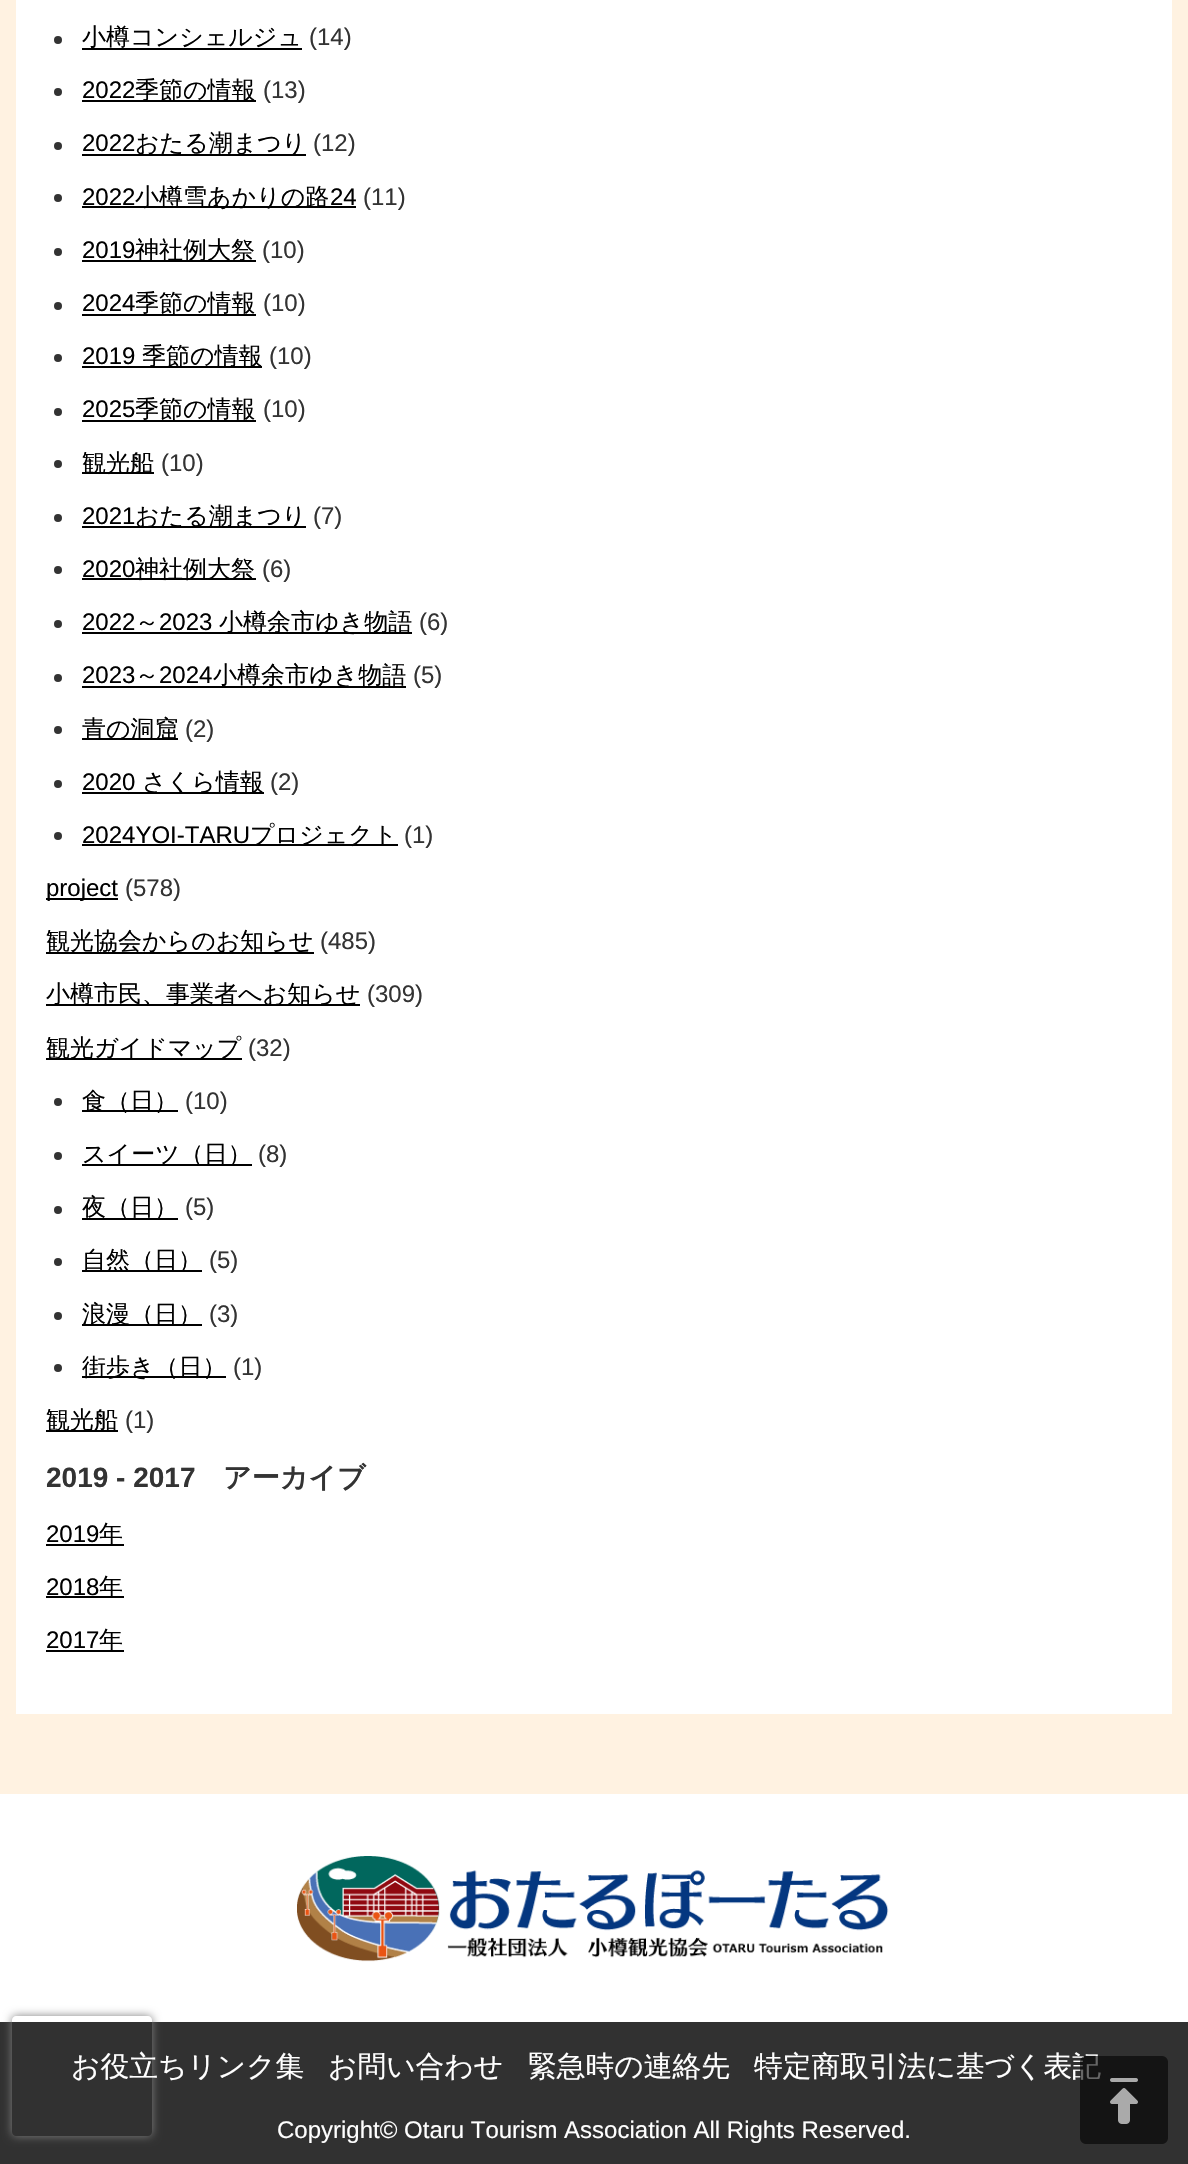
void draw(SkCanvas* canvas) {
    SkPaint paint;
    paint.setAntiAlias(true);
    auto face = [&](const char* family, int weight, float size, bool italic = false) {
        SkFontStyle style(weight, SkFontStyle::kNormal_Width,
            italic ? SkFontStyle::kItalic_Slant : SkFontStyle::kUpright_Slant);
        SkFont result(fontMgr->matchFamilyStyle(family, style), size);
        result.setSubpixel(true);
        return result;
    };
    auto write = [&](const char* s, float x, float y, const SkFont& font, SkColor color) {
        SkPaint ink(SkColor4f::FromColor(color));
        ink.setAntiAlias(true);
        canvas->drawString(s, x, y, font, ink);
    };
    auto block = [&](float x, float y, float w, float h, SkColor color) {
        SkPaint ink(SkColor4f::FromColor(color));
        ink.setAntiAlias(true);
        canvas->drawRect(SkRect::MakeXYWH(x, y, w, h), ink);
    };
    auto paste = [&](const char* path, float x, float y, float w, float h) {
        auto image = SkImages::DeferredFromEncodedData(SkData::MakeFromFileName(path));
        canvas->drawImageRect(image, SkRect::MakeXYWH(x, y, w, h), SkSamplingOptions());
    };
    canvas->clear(SK_ColorWHITE);
    block(0, 0, 1188, 1794, SkColorSetRGB(255, 242, 225));
    block(16, 0, 1156, 1714, SK_ColorWHITE);
    paint.setColor(SkColorSetRGB(51, 51, 51));
    canvas->drawCircle(58, 40, 4, paint);
    block(82, 48, 220, 2, SK_ColorBLACK);
    auto kFont1 = face("WenQuanYi Zen Hei", 500, 24);
    write("小樽コンシェルジュ", 82, 45, kFont1, SK_ColorBLACK);
    auto kFont2 = face("Liberation Sans", 400, 24);
    write("(14)", 309, 45, kFont2, SkColorSetRGB(51, 51, 51));
    canvas->drawCircle(58, 92, 4, paint);
    write("2022", 82, 98, kFont2, SK_ColorBLACK);
    block(82, 100, 174, 2, SK_ColorBLACK);
    write("季節の情報", 135, 98, kFont1, SK_ColorBLACK);
    write("(13)", 263, 98, kFont2, SkColorSetRGB(51, 51, 51));
    canvas->drawCircle(58, 146, 4, paint);
    write("2022", 82, 151, kFont2, SK_ColorBLACK);
    block(82, 154, 224, 2, SK_ColorBLACK);
    write("おたる潮まつり", 135, 151, kFont1, SK_ColorBLACK);
    write("(12)", 313, 151, kFont2, SkColorSetRGB(51, 51, 51));
    canvas->drawCircle(58, 198, 4, paint);
    write("2022", 82, 205, kFont2, SK_ColorBLACK);
    block(82, 206, 274, 2, SK_ColorBLACK);
    write("小樽雪あかりの路", 135, 205, kFont1, SK_ColorBLACK);
    write("24", 330, 205, kFont2, SK_ColorBLACK);
    write("(11)", 363, 205, kFont2, SkColorSetRGB(51, 51, 51));
    canvas->drawCircle(58, 252, 4, paint);
    write("2019", 82, 258, kFont2, SK_ColorBLACK);
    block(82, 260, 174, 2, SK_ColorBLACK);
    write("神社例大祭", 135, 258, kFont1, SK_ColorBLACK);
    write("(10)", 262, 258, kFont2, SkColorSetRGB(51, 51, 51));
    canvas->drawCircle(58, 306, 4, paint);
    write("2024", 82, 311, kFont2, SK_ColorBLACK);
    block(82, 314, 174, 2, SK_ColorBLACK);
    write("季節の情報", 135, 311, kFont1, SK_ColorBLACK);
    write("(10)", 263, 311, kFont2, SkColorSetRGB(51, 51, 51));
    canvas->drawCircle(58, 358, 4, paint);
    write("2019", 82, 364, kFont2, SK_ColorBLACK);
    block(82, 366, 180, 2, SK_ColorBLACK);
    write("季節の情報", 142, 364, kFont1, SK_ColorBLACK);
    write("(10)", 269, 364, kFont2, SkColorSetRGB(51, 51, 51));
    canvas->drawCircle(58, 412, 4, paint);
    write("2025", 82, 417, kFont2, SK_ColorBLACK);
    block(82, 420, 174, 2, SK_ColorBLACK);
    write("季節の情報", 135, 417, kFont1, SK_ColorBLACK);
    write("(10)", 263, 417, kFont2, SkColorSetRGB(51, 51, 51));
    canvas->drawCircle(58, 464, 4, paint);
    block(82, 472, 72, 2, SK_ColorBLACK);
    write("観光船", 82, 471, kFont1, SK_ColorBLACK);
    write("(10)", 161, 471, kFont2, SkColorSetRGB(51, 51, 51));
    canvas->drawCircle(58, 518, 4, paint);
    write("2021", 82, 524, kFont2, SK_ColorBLACK);
    block(82, 526, 224, 2, SK_ColorBLACK);
    write("おたる潮まつり", 135, 524, kFont1, SK_ColorBLACK);
    write("(7)", 313, 524, kFont2, SkColorSetRGB(51, 51, 51));
    canvas->drawCircle(58, 570, 4, paint);
    write("2020", 82, 577, kFont2, SK_ColorBLACK);
    block(82, 578, 174, 2, SK_ColorBLACK);
    write("神社例大祭", 135, 577, kFont1, SK_ColorBLACK);
    write("(6)", 262, 577, kFont2, SkColorSetRGB(51, 51, 51));
    canvas->drawCircle(58, 624, 4, paint);
    write("2022", 82, 630, kFont2, SK_ColorBLACK);
    write("～", 135, 630, kFont1, SK_ColorBLACK);
    block(82, 632, 330, 2, SK_ColorBLACK);
    write("2023", 159, 630, kFont2, SK_ColorBLACK);
    write("小樽余市ゆき物語", 219, 630, kFont1, SK_ColorBLACK);
    write("(6)", 419, 630, kFont2, SkColorSetRGB(51, 51, 51));
    canvas->drawCircle(58, 678, 4, paint);
    write("2023", 82, 683, kFont2, SK_ColorBLACK);
    write("～", 135, 683, kFont1, SK_ColorBLACK);
    block(82, 686, 324, 2, SK_ColorBLACK);
    write("2024", 159, 683, kFont2, SK_ColorBLACK);
    write("小樽余市ゆき物語", 213, 683, kFont1, SK_ColorBLACK);
    write("(5)", 413, 683, kFont2, SkColorSetRGB(51, 51, 51));
    canvas->drawCircle(58, 730, 4, paint);
    block(82, 738, 96, 2, SK_ColorBLACK);
    write("青の洞窟", 82, 737, kFont1, SK_ColorBLACK);
    write("(2)", 185, 737, kFont2, SkColorSetRGB(51, 51, 51));
    canvas->drawCircle(58, 784, 4, paint);
    write("2020", 82, 790, kFont2, SK_ColorBLACK);
    block(82, 792, 182, 2, SK_ColorBLACK);
    write("さくら情報", 142, 790, kFont1, SK_ColorBLACK);
    write("(2)", 270, 790, kFont2, SkColorSetRGB(51, 51, 51));
    canvas->drawCircle(58, 836, 4, paint);
    write("2024YOI-TARU", 82, 843, kFont2, SK_ColorBLACK);
    block(82, 844, 316, 2, SK_ColorBLACK);
    write("プロジェクト", 250, 843, kFont1, SK_ColorBLACK);
    write("(1)", 404, 843, kFont2, SkColorSetRGB(51, 51, 51));
    block(46, 898, 72, 2, SK_ColorBLACK);
    write("project", 46, 896, kFont2, SK_ColorBLACK);
    write("(578)", 125, 896, kFont2, SkColorSetRGB(51, 51, 51));
    block(46, 952, 268, 2, SK_ColorBLACK);
    write("観光協会からのお知らせ", 46, 949, kFont1, SK_ColorBLACK);
    write("(485)", 320, 949, kFont2, SkColorSetRGB(51, 51, 51));
    block(46, 1004, 314, 2, SK_ColorBLACK);
    write("小樽市民、事業者へお知らせ", 46, 1002, kFont1, SK_ColorBLACK);
    write("(309)", 367, 1002, kFont2, SkColorSetRGB(51, 51, 51));
    block(46, 1058, 196, 2, SK_ColorBLACK);
    write("観光ガイドマップ", 46, 1056, kFont1, SK_ColorBLACK);
    write("(32)", 248, 1056, kFont2, SkColorSetRGB(51, 51, 51));
    canvas->drawCircle(58, 1102, 4, paint);
    block(82, 1110, 96, 2, SK_ColorBLACK);
    write("食（日）", 82, 1109, kFont1, SK_ColorBLACK);
    write("(10)", 185, 1109, kFont2, SkColorSetRGB(51, 51, 51));
    canvas->drawCircle(58, 1156, 4, paint);
    block(82, 1164, 170, 2, SK_ColorBLACK);
    write("スイーツ（日）", 82, 1162, kFont1, SK_ColorBLACK);
    write("(8)", 258, 1162, kFont2, SkColorSetRGB(51, 51, 51));
    canvas->drawCircle(58, 1210, 4, paint);
    block(82, 1218, 96, 2, SK_ColorBLACK);
    write("夜（日）", 82, 1215, kFont1, SK_ColorBLACK);
    write("(5)", 185, 1215, kFont2, SkColorSetRGB(51, 51, 51));
    canvas->drawCircle(58, 1262, 4, paint);
    block(82, 1270, 120, 2, SK_ColorBLACK);
    write("自然（日）", 82, 1268, kFont1, SK_ColorBLACK);
    write("(5)", 209, 1268, kFont2, SkColorSetRGB(51, 51, 51));
    canvas->drawCircle(58, 1316, 4, paint);
    block(82, 1324, 120, 2, SK_ColorBLACK);
    write("浪漫（日）", 82, 1322, kFont1, SK_ColorBLACK);
    write("(3)", 209, 1322, kFont2, SkColorSetRGB(51, 51, 51));
    canvas->drawCircle(58, 1368, 4, paint);
    block(82, 1376, 144, 2, SK_ColorBLACK);
    write("街歩き（日）", 82, 1375, kFont1, SK_ColorBLACK);
    write("(1)", 233, 1375, kFont2, SkColorSetRGB(51, 51, 51));
    block(46, 1430, 72, 2, SK_ColorBLACK);
    write("観光船", 46, 1428, kFont1, SK_ColorBLACK);
    write("(1)", 125, 1428, kFont2, SkColorSetRGB(51, 51, 51));
    auto kFont3 = face("Liberation Sans", 700, 28);
    write("2019 - 2017", 46, 1487, kFont3, SkColorSetRGB(51, 51, 51));
    auto kFont4 = face("WenQuanYi Zen Hei", 700, 28);
    write("アーカイブ", 223, 1487, kFont4, SkColorSetRGB(51, 51, 51));
    write("2019", 46, 1542, kFont2, SK_ColorBLACK);
    block(46, 1544, 78, 2, SK_ColorBLACK);
    write("年", 99, 1542, kFont1, SK_ColorBLACK);
    write("2018", 46, 1595, kFont2, SK_ColorBLACK);
    block(46, 1596, 78, 2, SK_ColorBLACK);
    write("年", 99, 1595, kFont1, SK_ColorBLACK);
    write("2017", 46, 1648, kFont2, SK_ColorBLACK);
    block(46, 1650, 78, 2, SK_ColorBLACK);
    write("年", 99, 1648, kFont1, SK_ColorBLACK);
    block(0, 2022, 1188, 142, SkColorSetRGB(49, 49, 49));
    canvas->save();
    canvas->clipPath(SkPathBuilder(SkPathFillType::kEvenOdd).moveTo(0, 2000).lineTo(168, 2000).lineTo(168, 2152).lineTo(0, 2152).close().moveTo(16, 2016).lineTo(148, 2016).cubicTo(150, 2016, 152, 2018, 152, 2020).lineTo(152, 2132).cubicTo(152, 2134, 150, 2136, 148, 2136).lineTo(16, 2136).cubicTo(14, 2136, 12, 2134, 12, 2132).lineTo(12, 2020).cubicTo(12, 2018, 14, 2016, 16, 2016).close().detach(), true);
    paint.setColor(SkColorSetRGB(128, 128, 128));
    paint.setMaskFilter(SkMaskFilter::MakeBlur(kNormal_SkBlurStyle, 5));
    canvas->drawRoundRect(SkRect::MakeXYWH(12, 2016, 140, 120), 4, 4, paint);
    paint.setMaskFilter(nullptr);
    canvas->restore();
    paste("pic1.png", 297, 1856, 592, 106);
    auto kFont5 = face("WenQuanYi Zen Hei", 500, 28.75f);
    write("お役立ちリンク集", 71, 2076, kFont5, SK_ColorWHITE);
    write("お問い合わせ", 328, 2076, kFont5, SK_ColorWHITE);
    write("緊急時の連絡先", 528, 2076, kFont5, SK_ColorWHITE);
    write("特定商取引法に基づく表記", 754, 2076, kFont5, SK_ColorWHITE);
    write("Copyright© Otaru Tourism Association All Rights Reserved.", 277, 2138, kFont2, SK_ColorWHITE);
    paste("pic2.png", 1080, 2056, 88, 88);
}
